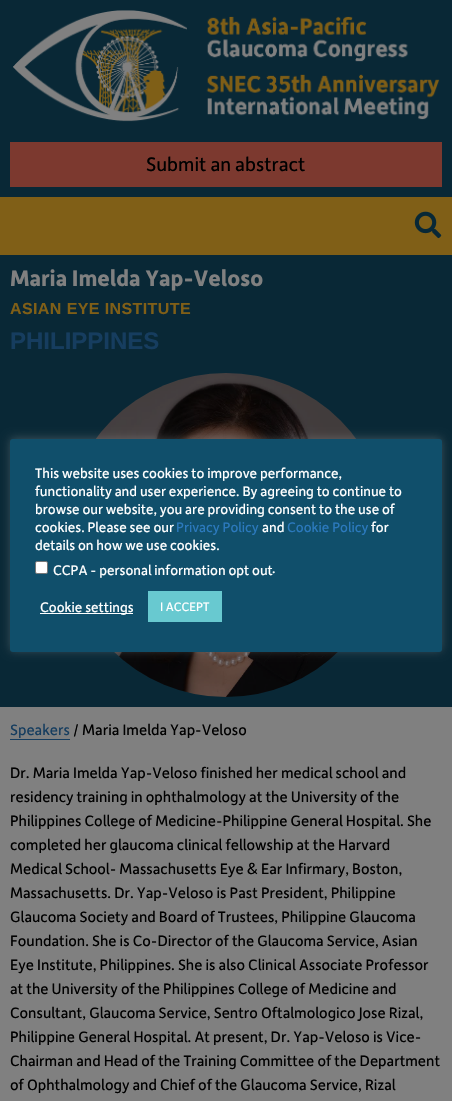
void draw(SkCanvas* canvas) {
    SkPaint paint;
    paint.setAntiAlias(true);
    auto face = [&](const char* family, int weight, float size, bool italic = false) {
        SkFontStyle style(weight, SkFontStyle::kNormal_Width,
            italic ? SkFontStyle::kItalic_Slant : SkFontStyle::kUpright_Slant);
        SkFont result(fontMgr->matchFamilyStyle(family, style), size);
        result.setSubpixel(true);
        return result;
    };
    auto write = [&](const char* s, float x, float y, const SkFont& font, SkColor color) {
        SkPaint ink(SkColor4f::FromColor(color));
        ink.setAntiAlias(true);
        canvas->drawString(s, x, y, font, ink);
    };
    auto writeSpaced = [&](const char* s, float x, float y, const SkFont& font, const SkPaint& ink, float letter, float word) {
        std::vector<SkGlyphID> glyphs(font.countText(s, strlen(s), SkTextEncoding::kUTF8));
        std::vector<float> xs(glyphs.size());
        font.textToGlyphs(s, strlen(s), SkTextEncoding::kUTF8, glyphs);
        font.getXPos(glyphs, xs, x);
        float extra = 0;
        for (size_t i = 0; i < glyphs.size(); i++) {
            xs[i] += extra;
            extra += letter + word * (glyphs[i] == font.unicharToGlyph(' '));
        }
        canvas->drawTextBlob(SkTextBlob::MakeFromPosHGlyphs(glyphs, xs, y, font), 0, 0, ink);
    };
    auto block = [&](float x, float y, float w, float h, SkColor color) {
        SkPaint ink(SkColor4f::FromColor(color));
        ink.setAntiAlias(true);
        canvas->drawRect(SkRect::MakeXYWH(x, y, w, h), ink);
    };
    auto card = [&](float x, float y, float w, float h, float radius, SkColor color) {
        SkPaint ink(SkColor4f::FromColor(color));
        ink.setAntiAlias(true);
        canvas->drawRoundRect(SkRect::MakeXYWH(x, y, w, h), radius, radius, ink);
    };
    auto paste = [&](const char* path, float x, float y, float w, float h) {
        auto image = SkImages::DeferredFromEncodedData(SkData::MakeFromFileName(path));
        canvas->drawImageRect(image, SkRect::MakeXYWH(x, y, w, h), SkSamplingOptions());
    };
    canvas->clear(SkColorSetRGB(128, 128, 128));
    block(0, 0, 452, 197, SkColorSetRGB(9, 40, 54));
    paste("pic1.png", 13, 10, 427, 112);
    block(10, 142, 432, 45, SkColorSetRGB(124, 57, 47));
    auto kFont1 = face("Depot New", 400, 20.75f);
    write("Submit an abstract", 146, 171, kFont1, SK_ColorBLACK);
    block(0, 197, 452, 58, SkColorSetRGB(128, 95, 23));
    paste("pic2.png", 414, 211, 28, 28);
    block(0, 255, 452, 452, SkColorSetRGB(9, 40, 54));
    auto kFont2 = face("Depot New", 700, 24);
    write("Maria Imelda Yap-Veloso", 10, 286, kFont2, SkColorSetRGB(128, 128, 128));
    auto kFont3 = face("Liberation Sans", 700, 16);
    paint.setColor(SkColorSetRGB(128, 95, 23));
    writeSpaced("ASIAN EYE INSTITUTE", 10, 314, kFont3, paint, 0.4f, 0);
    auto kFont4 = face("Liberation Sans", 700, 24);
    write("PHILIPPINES", 10, 349, kFont4, SkColorSetRGB(22, 61, 95));
    paste("pic3.png", 96, 373, 261, 324);
    auto kFont5 = face("Depot New", 400, 16);
    write("Speakers", 10, 735, kFont5, SkColorSetRGB(22, 61, 95));
    block(10, 739, 60, 1, SkColorSetRGB(22, 61, 95));
    write("/ Maria Imelda Yap-Veloso", 73, 735, kFont5, SK_ColorBLACK);
    write("Dr. Maria Imelda Yap-Veloso finished her medical school and", 10, 778, kFont5, SK_ColorBLACK);
    write("residency training in ophthalmology at the University of the", 10, 802, kFont5, SK_ColorBLACK);
    write("Philippines College of Medicine-Philippine General Hospital. She", 10, 826, kFont5, SK_ColorBLACK);
    write("completed her glaucoma clinical fellowship at the Harvard", 10, 850, kFont5, SK_ColorBLACK);
    write("Medical School- Massachusetts Eye & Ear Infirmary, Boston,", 10, 874, kFont5, SK_ColorBLACK);
    write("Massachusetts. Dr. Yap-Veloso is Past President, Philippine", 10, 898, kFont5, SK_ColorBLACK);
    write("Glaucoma Society and Board of Trustees, Philippine Glaucoma", 10, 922, kFont5, SK_ColorBLACK);
    write("Foundation. She is Co-Director of the Glaucoma Service, Asian", 10, 946, kFont5, SK_ColorBLACK);
    write("Eye Institute, Philippines. She is also Clinical Associate Professor", 10, 970, kFont5, SK_ColorBLACK);
    write("at the University of the Philippines College of Medicine and", 10, 994, kFont5, SK_ColorBLACK);
    write("Consultant, Glaucoma Service, Sentro Oftalmologico Jose Rizal,", 10, 1018, kFont5, SK_ColorBLACK);
    write("Philippine General Hospital. At present, Dr. Yap-Veloso is Vice-", 10, 1042, kFont5, SK_ColorBLACK);
    write("Chairman and Head of the Training Committee of the Department", 10, 1066, kFont5, SK_ColorBLACK);
    write("of Ophthalmology and Chief of the Glaucoma Service, Rizal", 10, 1090, kFont5, SK_ColorBLACK);
    paint.setColor(SkColorSetARGB(77, 172, 171, 171));
    paint.setMaskFilter(SkMaskFilter::MakeBlur(kNormal_SkBlurStyle, 5));
    canvas->drawRoundRect(SkRect::MakeXYWH(10, 438, 432, 213), 3, 3, paint);
    paint.setMaskFilter(nullptr);
    card(10, 439, 432, 213, 3, SkColorSetRGB(16, 79, 107));
    auto kFont6 = face("Depot New", 400, 14.7f);
    write("This website uses cookies to improve performance,", 35, 478, kFont6, SK_ColorWHITE);
    write("functionality and user experience. By agreeing to continue to", 35, 496, kFont6, SK_ColorWHITE);
    write("browse our website, you are providing consent to the use of", 35, 514, kFont6, SK_ColorWHITE);
    write("cookies. Please see our", 35, 532, kFont6, SK_ColorWHITE);
    write("Privacy Policy", 176, 532, kFont6, SkColorSetRGB(43, 121, 189));
    write("and", 262, 532, kFont6, SK_ColorWHITE);
    write("Cookie Policy", 287, 532, kFont6, SkColorSetRGB(43, 121, 189));
    write("for", 371, 532, kFont6, SK_ColorWHITE);
    write("details on how we use cookies.", 35, 550, kFont6, SK_ColorWHITE);
    paint.setColor(SK_ColorWHITE);
    canvas->drawRoundRect(SkRect::MakeXYWH(35.5f, 561.5f, 12, 12), 1.5f, 1.5f, paint);
    paint.setStyle(SkPaint::kStroke_Style);
    paint.setStrokeWidth(1);
    paint.setColor(SkColorSetRGB(118, 118, 118));
    canvas->drawRoundRect(SkRect::MakeXYWH(35.5f, 561.5f, 12, 12), 1.5f, 1.5f, paint);
    write("CCPA - personal information opt out", 53, 575, kFont6, SK_ColorWHITE);
    write(".", 272, 573, kFont6, SK_ColorWHITE);
    block(40, 613, 93, 1, SK_ColorWHITE);
    write("Cookie settings", 40, 612, kFont6, SK_ColorWHITE);
    block(148, 591, 74, 31, SkColorSetRGB(104, 201, 208));
    auto kFont7 = face("Depot New", 400, 13);
    write("I ACCEPT", 160, 611, kFont7, SK_ColorWHITE);
}
